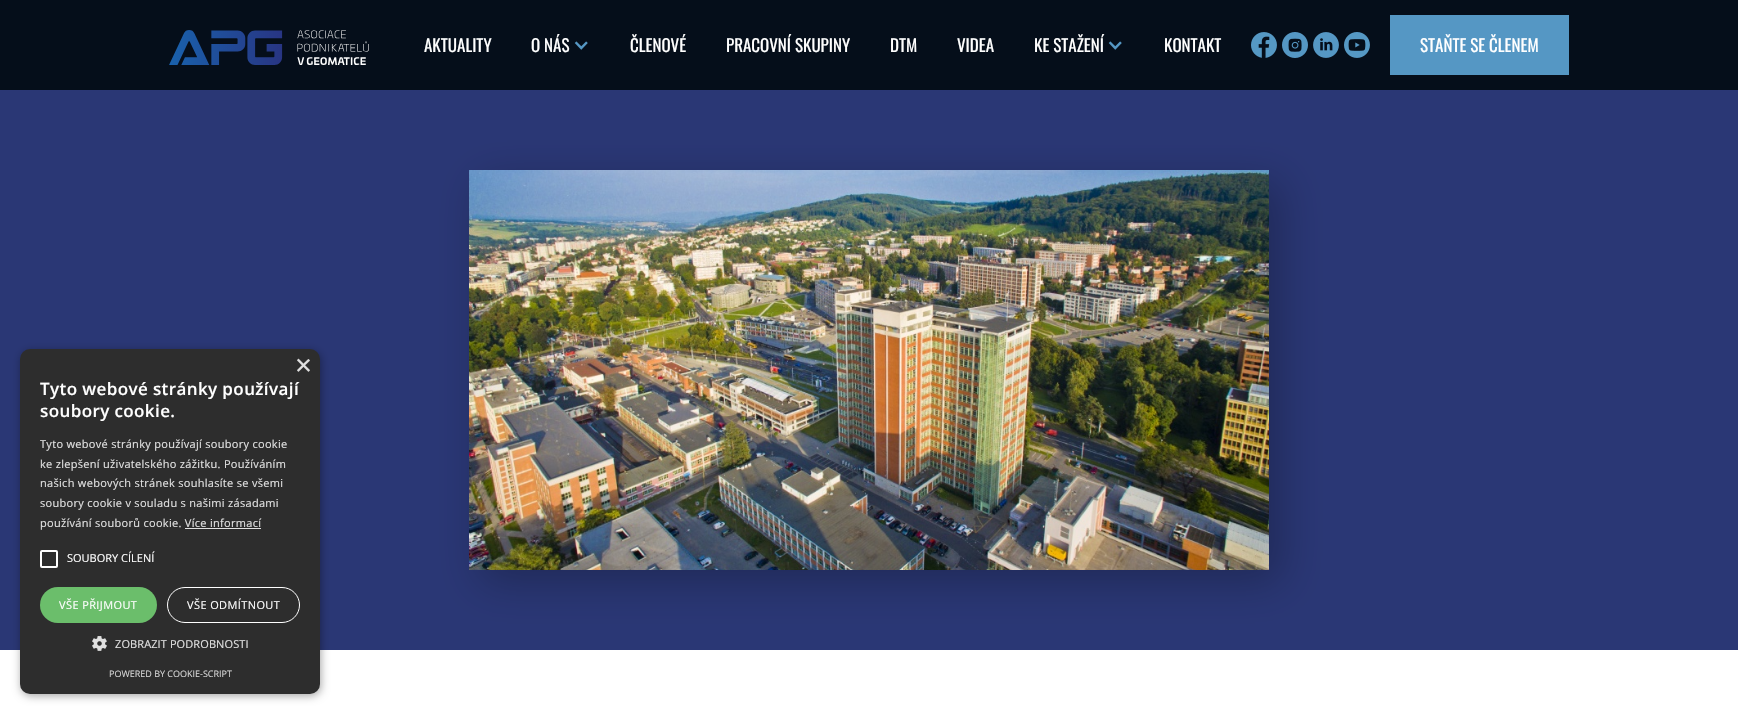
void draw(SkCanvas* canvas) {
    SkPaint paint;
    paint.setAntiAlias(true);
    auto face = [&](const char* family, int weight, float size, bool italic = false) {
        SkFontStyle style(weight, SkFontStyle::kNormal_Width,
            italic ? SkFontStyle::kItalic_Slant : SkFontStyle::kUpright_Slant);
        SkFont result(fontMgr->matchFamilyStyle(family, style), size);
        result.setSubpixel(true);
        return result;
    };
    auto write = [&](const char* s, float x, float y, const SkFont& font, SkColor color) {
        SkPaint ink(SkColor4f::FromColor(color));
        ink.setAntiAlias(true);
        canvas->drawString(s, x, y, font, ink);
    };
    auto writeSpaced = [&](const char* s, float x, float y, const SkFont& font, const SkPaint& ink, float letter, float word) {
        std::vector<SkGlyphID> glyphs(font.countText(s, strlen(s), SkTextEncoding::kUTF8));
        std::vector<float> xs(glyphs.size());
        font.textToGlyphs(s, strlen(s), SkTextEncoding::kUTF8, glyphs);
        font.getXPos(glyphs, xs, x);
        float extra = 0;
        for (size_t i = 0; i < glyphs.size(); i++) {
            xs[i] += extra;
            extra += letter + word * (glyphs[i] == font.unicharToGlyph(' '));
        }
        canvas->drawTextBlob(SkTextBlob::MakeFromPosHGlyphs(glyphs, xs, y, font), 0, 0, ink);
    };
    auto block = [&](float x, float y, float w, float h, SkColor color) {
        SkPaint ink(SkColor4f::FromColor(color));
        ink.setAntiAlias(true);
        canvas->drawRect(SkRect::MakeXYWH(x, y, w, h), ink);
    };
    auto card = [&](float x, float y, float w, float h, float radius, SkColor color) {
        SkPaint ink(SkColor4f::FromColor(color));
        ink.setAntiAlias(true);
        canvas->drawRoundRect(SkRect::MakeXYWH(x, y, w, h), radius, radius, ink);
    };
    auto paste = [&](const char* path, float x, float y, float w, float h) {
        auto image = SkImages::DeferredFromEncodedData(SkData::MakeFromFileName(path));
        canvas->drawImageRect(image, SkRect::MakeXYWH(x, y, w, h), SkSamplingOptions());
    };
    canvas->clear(SK_ColorWHITE);
    block(0, 0, 1738, 90, SkColorSetRGB(5, 14, 26));
    paste("pic1.png", 169, 30, 200, 35);
    auto kFont1 = face("Oswald", 400, 17);
    write("AKTUALITY", 424, 52, kFont1, SK_ColorWHITE);
    write("O NÁS", 531, 52, kFont1, SK_ColorWHITE);
    paste("pic2.png", 574, 41, 14, 9);
    write("ČLENOVÉ", 630, 52, kFont1, SK_ColorWHITE);
    write("PRACOVNÍ SKUPINY", 726, 52, kFont1, SK_ColorWHITE);
    write("DTM", 890, 52, kFont1, SK_ColorWHITE);
    write("VIDEA", 957, 52, kFont1, SK_ColorWHITE);
    write("KE STAŽENÍ", 1034, 52, kFont1, SK_ColorWHITE);
    paste("pic2.png", 1108, 41, 14, 9);
    write("KONTAKT", 1164, 52, kFont1, SK_ColorWHITE);
    paste("pic3.png", 1251, 32, 26, 26);
    paste("pic4.png", 1282, 32, 26, 26);
    paste("pic5.png", 1313, 32, 26, 26);
    paste("pic6.png", 1344, 32, 26, 26);
    block(1390, 15, 179, 60, SkColorSetRGB(85, 151, 196));
    write("STAŇTE SE ČLENEM", 1420, 52, kFont1, SK_ColorWHITE);
    block(0, 90, 1738, 560, SkColorSetRGB(42, 55, 117));
    paint.setColor(SkColorSetARGB(64, 0, 0, 0));
    paint.setMaskFilter(SkMaskFilter::MakeBlur(kNormal_SkBlurStyle, 20));
    canvas->drawRect(SkRect::MakeXYWH(481, 182, 800, 400), paint);
    paint.setMaskFilter(nullptr);
    paste("pic7.png", 469, 170, 800, 400);
    paint.setColor(SkColorSetARGB(89, 0, 0, 0));
    paint.setMaskFilter(SkMaskFilter::MakeBlur(kNormal_SkBlurStyle, 4));
    canvas->drawRoundRect(SkRect::MakeXYWH(21, 351, 300, 345), 10, 10, paint);
    paint.setMaskFilter(nullptr);
    card(20, 349, 300, 345, 10, SkColorSetRGB(45, 45, 45));
    auto kFont2 = face("Liberation Sans", 400, 29);
    write("×", 295, 375, kFont2, SkColorSetRGB(224, 224, 224));
    auto kFont3 = face("Open Sans", 600, 17);
    paint.setColor(SK_ColorWHITE);
    writeSpaced("Tyto webové stránky používají", 40, 395, kFont3, paint, 0.4f, 0);
    writeSpaced("soubory cookie.", 40, 417, kFont3, paint, 0.4f, 0);
    auto kFont4 = face("Open Sans", 400, 11);
    paint.setColor(SkColorSetRGB(224, 224, 224));
    writeSpaced("Tyto webové stránky používají soubory cookie", 40, 448, kFont4, paint, 0.3f, 0);
    writeSpaced("ke zlepšení uživatelského zážitku. Používáním", 40, 468, kFont4, paint, 0.3f, 0);
    writeSpaced("našich webových stránek souhlasíte se všemi", 40, 487, kFont4, paint, 0.3f, 0);
    writeSpaced("soubory cookie v souladu s našimi zásadami", 40, 507, kFont4, paint, 0.3f, 0);
    writeSpaced("používání souborů cookie. Více informací", 40, 527, kFont4, paint, 0.3f, 0);
    block(185, 528, 76, 1, SkColorSetRGB(224, 224, 224));
    paint.setStyle(SkPaint::kStroke_Style);
    paint.setStrokeWidth(2);
    paint.setColor(SK_ColorWHITE);
    canvas->drawRoundRect(SkRect::MakeXYWH(41, 551, 16, 16), 1, 1, paint);
    write("SOUBORY CÍLENÍ", 67, 562, kFont4, SK_ColorWHITE);
    card(40, 587, 117, 36, 18, SkColorSetRGB(107, 190, 107));
    paint.setStyle(SkPaint::kFill_Style);
    writeSpaced("VŠE PŘIJMOUT", 59, 609, kFont4, paint, 0.4f, 0);
    paint.setStyle(SkPaint::kStroke_Style);
    paint.setStrokeWidth(1);
    canvas->drawRoundRect(SkRect::MakeXYWH(167.5f, 587.5f, 132, 35), 17.5f, 17.5f, paint);
    paint.setStyle(SkPaint::kFill_Style);
    writeSpaced("VŠE ODMÍTNOUT", 187, 609, kFont4, paint, 0.4f, 0);
    paste("pic8.png", 92, 636, 15, 15);
    paint.setColor(SkColorSetRGB(224, 224, 224));
    writeSpaced("ZOBRAZIT PODROBNOSTI", 115, 648, kFont4, paint, 0.1f, 0);
    auto kFont5 = face("Open Sans", 400, 9);
    write("POWERED BY COOKIE-SCRIPT", 109, 677, kFont5, SkColorSetRGB(213, 213, 213));
}
